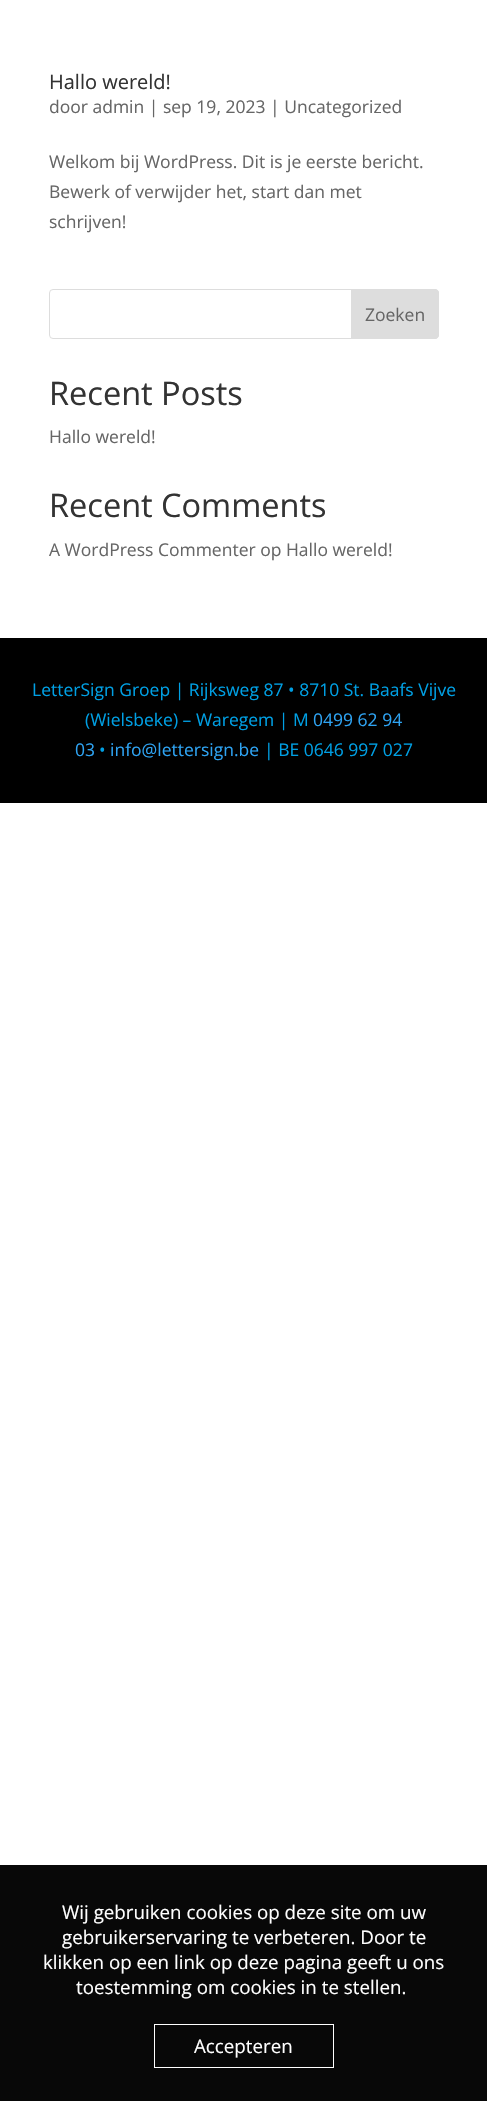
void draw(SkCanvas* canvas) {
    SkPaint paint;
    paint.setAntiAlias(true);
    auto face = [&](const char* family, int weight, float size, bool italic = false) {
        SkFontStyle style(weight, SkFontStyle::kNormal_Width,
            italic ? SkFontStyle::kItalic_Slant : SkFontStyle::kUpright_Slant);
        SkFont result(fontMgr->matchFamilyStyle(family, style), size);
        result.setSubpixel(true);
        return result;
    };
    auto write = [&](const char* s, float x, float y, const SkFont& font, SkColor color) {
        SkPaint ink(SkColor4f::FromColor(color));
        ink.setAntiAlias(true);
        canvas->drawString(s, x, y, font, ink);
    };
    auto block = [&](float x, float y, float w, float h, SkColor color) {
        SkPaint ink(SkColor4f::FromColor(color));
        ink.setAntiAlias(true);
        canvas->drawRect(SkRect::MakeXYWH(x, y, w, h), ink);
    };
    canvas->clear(SK_ColorWHITE);
    auto kFont1 = face("Open Sans", 400, 20);
    write("Hallo wereld!", 49, 89, kFont1, SkColorSetRGB(51, 51, 51));
    auto kFont2 = face("Open Sans", 400, 17.5f);
    write("door admin | sep 19, 2023 | Uncategorized", 49, 113, kFont2, SkColorSetRGB(102, 102, 102));
    write("Welkom bij WordPress. Dit is je eerste bericht.", 49, 168, kFont2, SkColorSetRGB(102, 102, 102));
    write("Bewerk of verwijder het, start dan met", 49, 198, kFont2, SkColorSetRGB(102, 102, 102));
    write("schrijven!", 49, 228, kFont2, SkColorSetRGB(102, 102, 102));
    paint.setStyle(SkPaint::kStroke_Style);
    paint.setStrokeWidth(1);
    paint.setColor(SkColorSetRGB(221, 221, 221));
    canvas->drawRoundRect(SkRect::MakeXYWH(49.5f, 289.5f, 389, 49), 3.5f, 3.5f, paint);
    paint.setStyle(SkPaint::kFill_Style);
    canvas->drawPath(SkPathBuilder().moveTo(351.5f, 289.5f).lineTo(435, 289.5f).cubicTo(437, 289.5f, 438.5f, 291, 438.5f, 293).lineTo(438.5f, 335).cubicTo(438.5f, 337, 437, 338.5f, 435, 338.5f).lineTo(351.5f, 338.5f).close().detach(), paint);
    paint.setStyle(SkPaint::kStroke_Style);
    canvas->drawPath(SkPathBuilder().moveTo(351.5f, 289.5f).lineTo(435, 289.5f).cubicTo(437, 289.5f, 438.5f, 291, 438.5f, 293).lineTo(438.5f, 335).cubicTo(438.5f, 337, 437, 338.5f, 435, 338.5f).lineTo(351.5f, 338.5f).close().detach(), paint);
    write("Zoeken", 365, 321, kFont2, SkColorSetRGB(102, 102, 102));
    auto kFont3 = face("Open Sans", 400, 32.5f);
    write("Recent Posts", 49, 405, kFont3, SkColorSetRGB(51, 51, 51));
    write("Hallo wereld!", 49, 443, kFont2, SkColorSetRGB(102, 102, 102));
    write("Recent Comments", 49, 517, kFont3, SkColorSetRGB(51, 51, 51));
    write("A WordPress Commenter op Hallo wereld!", 49, 556, kFont2, SkColorSetRGB(102, 102, 102));
    block(0, 638, 487, 165, SK_ColorBLACK);
    write("LetterSign Groep | Rijksweg 87 • 8710 St. Baafs Vijve", 32, 696, kFont2, SkColorSetRGB(0, 159, 227));
    write("(Wielsbeke) – Waregem | M", 85, 726, kFont2, SkColorSetRGB(0, 159, 227));
    write("0499 62 94", 313, 726, kFont2, SkColorSetRGB(46, 163, 242));
    write("03", 75, 756, kFont2, SkColorSetRGB(46, 163, 242));
    write("•", 99, 756, kFont2, SkColorSetRGB(0, 159, 227));
    write("info@lettersign.be", 110, 756, kFont2, SkColorSetRGB(46, 163, 242));
    write("| BE 0646 997 027", 264, 756, kFont2, SkColorSetRGB(0, 159, 227));
    block(0, 1865, 487, 236, SkColorSetRGB(8, 8, 8));
    auto kFont4 = face("Open Sans", 400, 18.75f);
    write("Wij gebruiken cookies op deze site om uw", 62, 1919, kFont4, SK_ColorWHITE);
    write("gebruikerservaring te verbeteren. Door te", 62, 1944, kFont4, SK_ColorWHITE);
    write("klikken op een link op deze pagina geeft u ons", 43, 1969, kFont4, SK_ColorWHITE);
    write("toestemming om cookies in te stellen.", 76, 1994, kFont4, SK_ColorWHITE);
    paint.setColor(SK_ColorWHITE);
    canvas->drawRect(SkRect::MakeXYWH(154.5f, 2024.5f, 179, 43), paint);
    write("Accepteren", 194, 2053, kFont4, SK_ColorWHITE);
}
